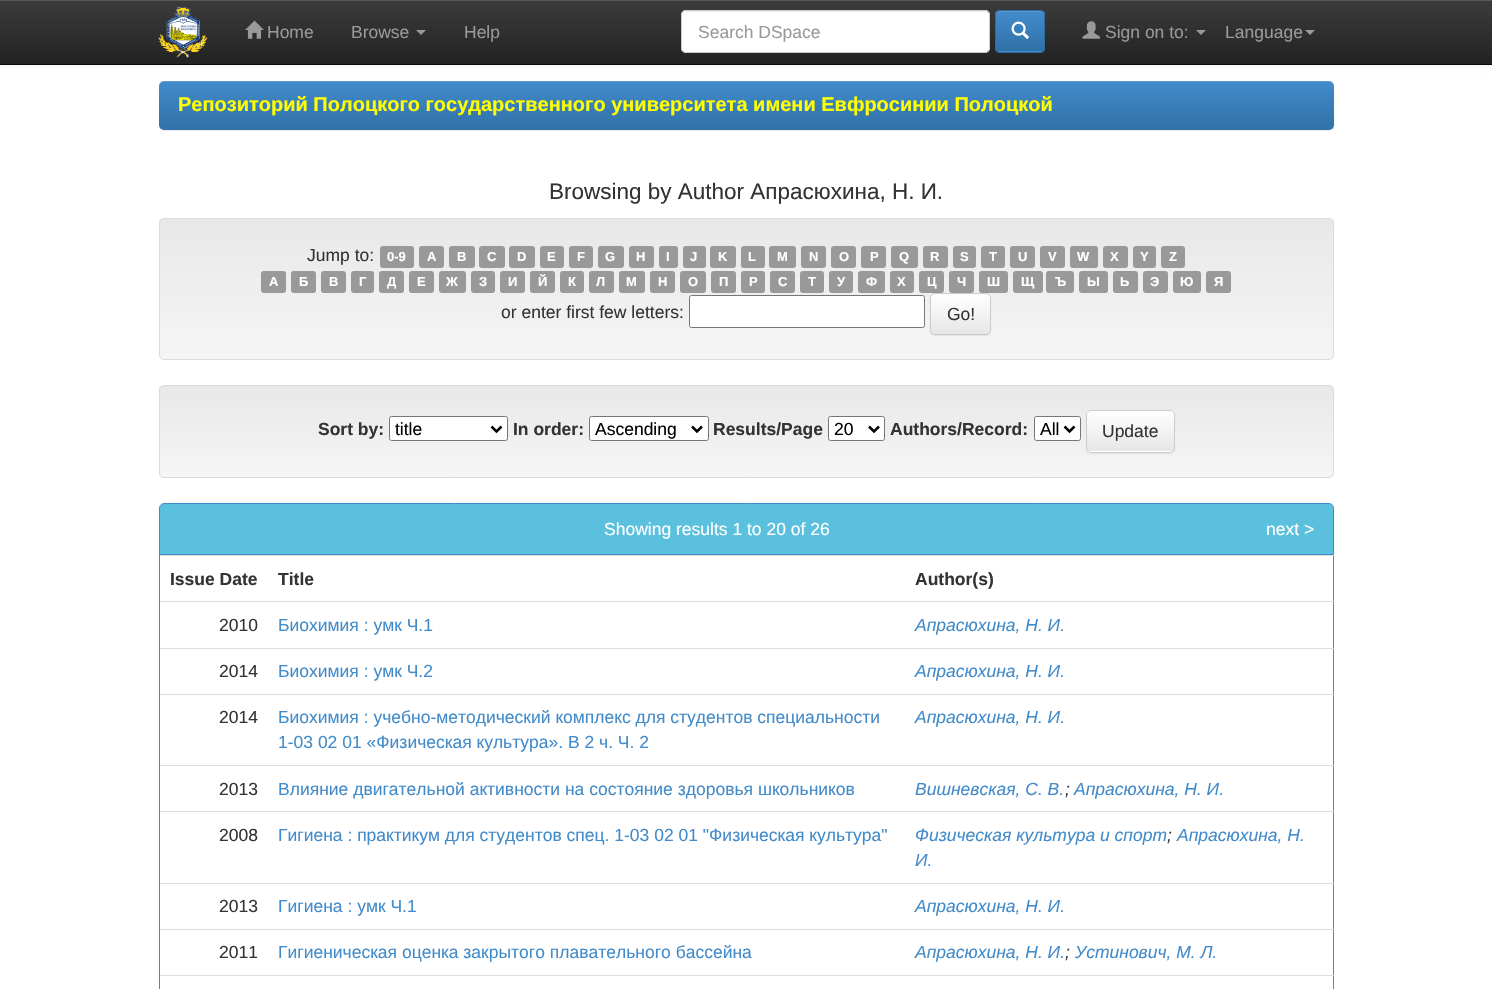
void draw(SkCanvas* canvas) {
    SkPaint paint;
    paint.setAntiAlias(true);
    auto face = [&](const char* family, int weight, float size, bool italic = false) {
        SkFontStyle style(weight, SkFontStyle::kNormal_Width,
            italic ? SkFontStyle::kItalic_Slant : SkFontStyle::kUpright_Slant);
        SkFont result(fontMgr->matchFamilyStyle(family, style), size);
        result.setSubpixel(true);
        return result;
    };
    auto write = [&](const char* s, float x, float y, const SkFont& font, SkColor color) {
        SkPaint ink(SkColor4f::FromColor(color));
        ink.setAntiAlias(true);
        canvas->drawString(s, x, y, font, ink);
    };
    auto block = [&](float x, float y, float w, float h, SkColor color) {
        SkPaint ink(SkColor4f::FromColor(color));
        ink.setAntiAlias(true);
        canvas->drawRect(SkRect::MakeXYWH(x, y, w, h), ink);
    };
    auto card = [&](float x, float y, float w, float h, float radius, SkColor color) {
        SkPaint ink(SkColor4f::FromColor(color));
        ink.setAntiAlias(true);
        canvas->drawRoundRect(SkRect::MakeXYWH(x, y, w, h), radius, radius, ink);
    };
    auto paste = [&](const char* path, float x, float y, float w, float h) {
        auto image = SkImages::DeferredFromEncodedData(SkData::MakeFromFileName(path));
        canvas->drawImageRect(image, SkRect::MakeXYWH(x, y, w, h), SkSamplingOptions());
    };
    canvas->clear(SK_ColorWHITE);
    paint.setColor(SkColorSetARGB(18, 0, 0, 0));
    paint.setMaskFilter(SkMaskFilter::MakeBlur(kNormal_SkBlurStyle, 3));
    canvas->drawRect(SkRect::MakeXYWH(0, 1, 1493, 65), paint);
    paint.setMaskFilter(nullptr);
    {
        const SkColor colors[] = {SkColorSetRGB(60, 60, 60), SkColorSetRGB(34, 34, 34)};
        const float stops[] = {0, 1};
        const SkPoint ends[] = {{746, 0}, {746, 64}};
        paint.setShader(SkGradientShader::MakeLinear(ends, colors, stops, 2, SkTileMode::kClamp));
        paint.setAlpha(255);
    }
    canvas->drawRect(SkRect::MakeXYWH(0, 1, 1492, 63), paint);
    block(0, 0, 1492, 1, SkColorSetRGB(89, 89, 89));
    block(0, 64, 1492, 1, SkColorSetRGB(8, 8, 8));
    paste("pic1.png", 158, 7, 50, 51);
    paste("pic2.png", 245, 20, 19, 19);
    auto kFont1 = face("Liberation Sans", 400, 17.5f);
    write("Home", 267, 38, kFont1, SkColorSetRGB(153, 153, 153));
    write("Browse", 351, 38, kFont1, SkColorSetRGB(153, 153, 153));
    paint.setShader(nullptr);
    paint.setColor(SkColorSetRGB(153, 153, 153));
    canvas->drawPath(SkPathBuilder().moveTo(416, 30).lineTo(426, 30).lineTo(421, 35).close().detach(), paint);
    write("Help", 464, 38, kFont1, SkColorSetRGB(153, 153, 153));
    card(681, 10, 309, 43, 5, SK_ColorWHITE);
    paint.setColor(SkColorSetRGB(236, 236, 236));
    canvas->drawPath(SkPathBuilder().moveTo(686, 12).lineTo(985, 12).cubicTo(987, 12, 989, 14, 989, 16).lineTo(989, 15).cubicTo(989, 13, 987, 11, 985, 11).lineTo(687, 11).cubicTo(686, 11, 684, 12, 684, 13).close().detach(), paint);
    paint.setStyle(SkPaint::kStroke_Style);
    paint.setStrokeWidth(1);
    paint.setColor(SkColorSetRGB(204, 204, 204));
    canvas->drawRoundRect(SkRect::MakeXYWH(681.5f, 10.5f, 308, 42), 4.5f, 4.5f, paint);
    write("Search DSpace", 698, 38, kFont1, SkColorSetRGB(153, 153, 153));
    card(995, 10, 50, 43, 5, SkColorSetRGB(66, 139, 202));
    canvas->save();
    canvas->clipPath(SkPathBuilder().moveTo(1000, 10).lineTo(1040, 10).cubicTo(1043, 10, 1045, 12, 1045, 15).lineTo(1045, 48).cubicTo(1045, 51, 1043, 53, 1040, 53).lineTo(1000, 53).cubicTo(997, 53, 995, 51, 995, 48).lineTo(995, 15).cubicTo(995, 12, 997, 10, 1000, 10).close().detach(), true);
    paint.setStyle(SkPaint::kFill_Style);
    {
        const SkColor colors[] = {SkColorSetRGB(66, 139, 202), SkColorSetRGB(48, 113, 169)};
        const float stops[] = {0, 1};
        const SkPoint ends[] = {{1020, 11}, {1020, 51}};
        paint.setShader(SkGradientShader::MakeLinear(ends, colors, stops, 2, SkTileMode::kClamp));
        paint.setAlpha(255);
    }
    canvas->drawRect(SkRect::MakeXYWH(995, 11, 50, 40), paint);
    canvas->restore();
    paint.setShader(nullptr);
    paint.setColor(SkColorSetRGB(94, 156, 210));
    canvas->drawPath(SkPathBuilder().moveTo(1000, 12).lineTo(1040, 12).cubicTo(1042, 12, 1044, 14, 1044, 16).cubicTo(1044, 10, 1038, 11, 1033, 11).lineTo(1007, 11).cubicTo(1002, 11, 996, 10, 996, 16).cubicTo(996, 14, 998, 12, 1000, 12).close().detach(), paint);
    paint.setStyle(SkPaint::kStroke_Style);
    paint.setColor(SkColorSetRGB(45, 108, 162));
    canvas->drawRoundRect(SkRect::MakeXYWH(995.5f, 10.5f, 49, 42), 4.5f, 4.5f, paint);
    paste("pic3.png", 1011, 21, 18, 18);
    paste("pic4.png", 1082, 21, 18, 18);
    write("Sign on to:", 1105, 38, kFont1, SkColorSetRGB(153, 153, 153));
    paint.setStyle(SkPaint::kFill_Style);
    paint.setColor(SkColorSetRGB(153, 153, 153));
    canvas->drawPath(SkPathBuilder().moveTo(1196, 30).lineTo(1206, 30).lineTo(1201, 35).close().detach(), paint);
    write("Language", 1225, 38, kFont1, SkColorSetRGB(153, 153, 153));
    canvas->drawPath(SkPathBuilder().moveTo(1305, 30).lineTo(1315, 30).lineTo(1310, 35).close().detach(), paint);
    paint.setColor(SkColorSetARGB(18, 0, 0, 0));
    paint.setMaskFilter(SkMaskFilter::MakeBlur(kNormal_SkBlurStyle, 0.5f));
    canvas->drawRoundRect(SkRect::MakeXYWH(159, 83, 1175, 48), 5, 5, paint);
    paint.setMaskFilter(nullptr);
    {
        const SkColor colors[] = {SkColorSetRGB(66, 139, 202), SkColorSetRGB(48, 113, 169)};
        const float stops[] = {0, 1};
        const SkPoint ends[] = {{746, 81}, {746, 130}};
        paint.setShader(SkGradientShader::MakeLinear(ends, colors, stops, 2, SkTileMode::kClamp));
        paint.setAlpha(255);
    }
    canvas->drawRoundRect(SkRect::MakeXYWH(159, 81, 1175, 49), 5, 5, paint);
    paint.setShader(nullptr);
    paint.setColor(SkColorSetARGB(38, 255, 255, 255));
    canvas->drawPath(SkPathBuilder().moveTo(164, 82).lineTo(1329, 82).cubicTo(1332, 82, 1334, 85, 1334, 88).lineTo(1334, 86).cubicTo(1334, 83, 1332, 81, 1329, 81).lineTo(164, 81).cubicTo(161, 81, 159, 83, 159, 86).lineTo(159, 88).cubicTo(159, 85, 161, 82, 164, 82).close().detach(), paint);
    auto kFont2 = face("Liberation Sans", 700, 20);
    write("Репозиторий Полоцкого государственного университета имени Евфросинии Полоцкой", 178, 111, kFont2, SkColorSetRGB(255, 255, 0));
    auto kFont3 = face("Liberation Sans", 400, 22.5f);
    write("Browsing by Author Апрасюхина, Н. И.", 549, 199, kFont3, SkColorSetRGB(51, 51, 51));
    canvas->save();
    canvas->clipPath(SkPathBuilder().moveTo(164, 218).lineTo(1329, 218).cubicTo(1332, 218, 1334, 220, 1334, 223).lineTo(1334, 355).cubicTo(1334, 358, 1332, 360, 1329, 360).lineTo(164, 360).cubicTo(161, 360, 159, 358, 159, 355).lineTo(159, 223).cubicTo(159, 220, 161, 218, 164, 218).close().detach(), true);
    {
        const SkColor colors[] = {SkColorSetRGB(232, 232, 232), SkColorSetRGB(245, 245, 245)};
        const float stops[] = {0, 1};
        const SkPoint ends[] = {{746, 219}, {746, 359}};
        paint.setShader(SkGradientShader::MakeLinear(ends, colors, stops, 2, SkTileMode::kClamp));
        paint.setAlpha(255);
    }
    canvas->drawRect(SkRect::MakeXYWH(159, 219, 1175, 140), paint);
    canvas->restore();
    paint.setStyle(SkPaint::kStroke_Style);
    paint.setShader(nullptr);
    paint.setColor(SkColorSetRGB(220, 220, 220));
    canvas->drawRoundRect(SkRect::MakeXYWH(159.5f, 218.5f, 1174, 141), 4.5f, 4.5f, paint);
    write("Jump to:", 307, 261, kFont1, SkColorSetRGB(51, 51, 51));
    card(380, 246, 34, 22, 3, SkColorSetRGB(153, 153, 153));
    auto kFont4 = face("Liberation Sans", 700, 13);
    write("0-9", 387, 261, kFont4, SK_ColorWHITE);
    card(419, 246, 25, 22, 3, SkColorSetRGB(153, 153, 153));
    write("A", 427, 261, kFont4, SK_ColorWHITE);
    card(449, 246, 26, 22, 3, SkColorSetRGB(153, 153, 153));
    write("B", 457, 261, kFont4, SK_ColorWHITE);
    card(479, 246, 26, 22, 3, SkColorSetRGB(153, 153, 153));
    write("C", 487, 261, kFont4, SK_ColorWHITE);
    card(509, 246, 26, 22, 3, SkColorSetRGB(153, 153, 153));
    write("D", 517, 261, kFont4, SK_ColorWHITE);
    card(540, 246, 24, 22, 3, SkColorSetRGB(153, 153, 153));
    write("E", 547, 261, kFont4, SK_ColorWHITE);
    card(569, 246, 24, 22, 3, SkColorSetRGB(153, 153, 153));
    write("F", 577, 261, kFont4, SK_ColorWHITE);
    card(598, 246, 26, 22, 3, SkColorSetRGB(153, 153, 153));
    write("G", 605, 261, kFont4, SK_ColorWHITE);
    card(629, 246, 25, 22, 3, SkColorSetRGB(153, 153, 153));
    write("H", 636, 261, kFont4, SK_ColorWHITE);
    card(659, 246, 19, 22, 3, SkColorSetRGB(153, 153, 153));
    write("I", 666, 261, kFont4, SK_ColorWHITE);
    card(683, 246, 23, 22, 3, SkColorSetRGB(153, 153, 153));
    write("J", 690, 261, kFont4, SK_ColorWHITE);
    card(710, 246, 26, 22, 3, SkColorSetRGB(153, 153, 153));
    write("K", 718, 261, kFont4, SK_ColorWHITE);
    card(741, 246, 24, 22, 3, SkColorSetRGB(153, 153, 153));
    write("L", 748, 261, kFont4, SK_ColorWHITE);
    card(769, 246, 27, 22, 3, SkColorSetRGB(153, 153, 153));
    write("M", 777, 261, kFont4, SK_ColorWHITE);
    card(801, 246, 25, 22, 3, SkColorSetRGB(153, 153, 153));
    write("N", 809, 261, kFont4, SK_ColorWHITE);
    card(831, 246, 25, 22, 3, SkColorSetRGB(153, 153, 153));
    write("O", 839, 261, kFont4, SK_ColorWHITE);
    card(861, 246, 25, 22, 3, SkColorSetRGB(153, 153, 153));
    write("P", 870, 261, kFont4, SK_ColorWHITE);
    card(891, 246, 27, 22, 3, SkColorSetRGB(153, 153, 153));
    write("Q", 899, 261, kFont4, SK_ColorWHITE);
    card(923, 246, 25, 22, 3, SkColorSetRGB(153, 153, 153));
    write("R", 930, 261, kFont4, SK_ColorWHITE);
    card(953, 246, 23, 22, 3, SkColorSetRGB(153, 153, 153));
    write("S", 960, 261, kFont4, SK_ColorWHITE);
    card(981, 246, 24, 22, 3, SkColorSetRGB(153, 153, 153));
    write("T", 989, 261, kFont4, SK_ColorWHITE);
    card(1010, 246, 25, 22, 3, SkColorSetRGB(153, 153, 153));
    write("U", 1018, 261, kFont4, SK_ColorWHITE);
    card(1040, 246, 25, 22, 3, SkColorSetRGB(153, 153, 153));
    write("V", 1048, 261, kFont4, SK_ColorWHITE);
    card(1070, 246, 28, 22, 3, SkColorSetRGB(153, 153, 153));
    write("W", 1077, 261, kFont4, SK_ColorWHITE);
    card(1103, 246, 25, 22, 3, SkColorSetRGB(153, 153, 153));
    write("X", 1110, 261, kFont4, SK_ColorWHITE);
    card(1133, 246, 23, 22, 3, SkColorSetRGB(153, 153, 153));
    write("Y", 1140, 261, kFont4, SK_ColorWHITE);
    card(1161, 246, 24, 22, 3, SkColorSetRGB(153, 153, 153));
    write("Z", 1169, 261, kFont4, SK_ColorWHITE);
    card(261, 271, 25, 22, 3, SkColorSetRGB(153, 153, 153));
    write("А", 269, 286, kFont4, SK_ColorWHITE);
    card(291, 271, 25, 22, 3, SkColorSetRGB(153, 153, 153));
    write("Б", 299, 286, kFont4, SK_ColorWHITE);
    card(321, 271, 25, 22, 3, SkColorSetRGB(153, 153, 153));
    write("В", 329, 286, kFont4, SK_ColorWHITE);
    card(351, 271, 23, 22, 3, SkColorSetRGB(153, 153, 153));
    write("Г", 359, 286, kFont4, SK_ColorWHITE);
    card(379, 271, 25, 22, 3, SkColorSetRGB(153, 153, 153));
    write("Д", 387, 286, kFont4, SK_ColorWHITE);
    card(409, 271, 25, 22, 3, SkColorSetRGB(153, 153, 153));
    write("Е", 417, 286, kFont4, SK_ColorWHITE);
    card(439, 271, 27, 22, 3, SkColorSetRGB(153, 153, 153));
    write("Ж", 446, 286, kFont4, SK_ColorWHITE);
    card(471, 271, 24, 22, 3, SkColorSetRGB(153, 153, 153));
    write("З", 479, 286, kFont4, SK_ColorWHITE);
    card(500, 271, 25, 22, 3, SkColorSetRGB(153, 153, 153));
    write("И", 508, 286, kFont4, SK_ColorWHITE);
    card(530, 271, 25, 22, 3, SkColorSetRGB(153, 153, 153));
    write("Й", 538, 286, kFont4, SK_ColorWHITE);
    card(560, 271, 24, 22, 3, SkColorSetRGB(153, 153, 153));
    write("К", 568, 286, kFont4, SK_ColorWHITE);
    card(589, 271, 25, 22, 3, SkColorSetRGB(153, 153, 153));
    write("Л", 596, 286, kFont4, SK_ColorWHITE);
    card(619, 271, 26, 22, 3, SkColorSetRGB(153, 153, 153));
    write("М", 626, 286, kFont4, SK_ColorWHITE);
    card(650, 271, 25, 22, 3, SkColorSetRGB(153, 153, 153));
    write("Н", 658, 286, kFont4, SK_ColorWHITE);
    card(680, 271, 26, 22, 3, SkColorSetRGB(153, 153, 153));
    write("О", 688, 286, kFont4, SK_ColorWHITE);
    card(711, 271, 25, 22, 3, SkColorSetRGB(153, 153, 153));
    write("П", 719, 286, kFont4, SK_ColorWHITE);
    card(741, 271, 24, 22, 3, SkColorSetRGB(153, 153, 153));
    write("Р", 749, 286, kFont4, SK_ColorWHITE);
    card(770, 271, 25, 22, 3, SkColorSetRGB(153, 153, 153));
    write("С", 778, 286, kFont4, SK_ColorWHITE);
    card(800, 271, 24, 22, 3, SkColorSetRGB(153, 153, 153));
    write("Т", 808, 286, kFont4, SK_ColorWHITE);
    card(829, 271, 24, 22, 3, SkColorSetRGB(153, 153, 153));
    write("У", 837, 286, kFont4, SK_ColorWHITE);
    card(858, 271, 27, 22, 3, SkColorSetRGB(153, 153, 153));
    write("Ф", 866, 286, kFont4, SK_ColorWHITE);
    card(890, 271, 24, 22, 3, SkColorSetRGB(153, 153, 153));
    write("Х", 897, 286, kFont4, SK_ColorWHITE);
    card(919, 271, 25, 22, 3, SkColorSetRGB(153, 153, 153));
    write("Ц", 927, 286, kFont4, SK_ColorWHITE);
    card(949, 271, 25, 22, 3, SkColorSetRGB(153, 153, 153));
    write("Ч", 957, 286, kFont4, SK_ColorWHITE);
    card(979, 271, 29, 22, 3, SkColorSetRGB(153, 153, 153));
    write("Ш", 987, 286, kFont4, SK_ColorWHITE);
    card(1013, 271, 30, 22, 3, SkColorSetRGB(153, 153, 153));
    write("Щ", 1021, 286, kFont4, SK_ColorWHITE);
    card(1046, 271, 28, 22, 3, SkColorSetRGB(153, 153, 153));
    write("Ъ", 1055, 286, kFont4, SK_ColorWHITE);
    card(1079, 271, 29, 22, 3, SkColorSetRGB(153, 153, 153));
    write("Ы", 1087, 286, kFont4, SK_ColorWHITE);
    card(1113, 271, 25, 22, 3, SkColorSetRGB(153, 153, 153));
    write("Ь", 1120, 286, kFont4, SK_ColorWHITE);
    card(1143, 271, 25, 22, 3, SkColorSetRGB(153, 153, 153));
    write("Э", 1150, 286, kFont4, SK_ColorWHITE);
    card(1173, 271, 28, 22, 3, SkColorSetRGB(153, 153, 153));
    write("Ю", 1180, 286, kFont4, SK_ColorWHITE);
    card(1206, 271, 25, 22, 3, SkColorSetRGB(153, 153, 153));
    write("Я", 1214, 286, kFont4, SK_ColorWHITE);
    write("or enter first few letters:", 501, 318, kFont1, SkColorSetRGB(51, 51, 51));
    paint.setStyle(SkPaint::kFill_Style);
    paint.setColor(SK_ColorWHITE);
    canvas->drawRoundRect(SkRect::MakeXYWH(689.5f, 295.5f, 235, 32), 2, 2, paint);
    paint.setStyle(SkPaint::kStroke_Style);
    paint.setColor(SkColorSetRGB(118, 118, 118));
    canvas->drawRoundRect(SkRect::MakeXYWH(689.5f, 295.5f, 235, 32), 2, 2, paint);
    paint.setStyle(SkPaint::kFill_Style);
    paint.setColor(SkColorSetARGB(18, 0, 0, 0));
    paint.setMaskFilter(SkMaskFilter::MakeBlur(kNormal_SkBlurStyle, 0.5f));
    canvas->drawRoundRect(SkRect::MakeXYWH(930, 294, 61, 42), 5, 5, paint);
    paint.setMaskFilter(nullptr);
    canvas->save();
    canvas->clipPath(SkPathBuilder().moveTo(935, 293).lineTo(986, 293).cubicTo(989, 293, 991, 295, 991, 298).lineTo(991, 330).cubicTo(991, 333, 989, 335, 986, 335).lineTo(935, 335).cubicTo(932, 335, 930, 333, 930, 330).lineTo(930, 298).cubicTo(930, 295, 932, 293, 935, 293).close().detach(), true);
    {
        const SkColor colors[] = {SK_ColorWHITE, SkColorSetRGB(230, 230, 230)};
        const float stops[] = {0, 1};
        const SkPoint ends[] = {{961, 294}, {961, 334}};
        paint.setShader(SkGradientShader::MakeLinear(ends, colors, stops, 2, SkTileMode::kClamp));
        paint.setAlpha(255);
    }
    canvas->drawRect(SkRect::MakeXYWH(930, 294, 61, 40), paint);
    canvas->restore();
    paint.setStyle(SkPaint::kStroke_Style);
    paint.setShader(nullptr);
    paint.setColor(SkColorSetRGB(204, 204, 204));
    canvas->drawRoundRect(SkRect::MakeXYWH(930.5f, 293.5f, 60, 41), 4.5f, 4.5f, paint);
    write("Go!", 947, 320, kFont1, SkColorSetRGB(51, 51, 51));
    card(159, 385, 1175, 93, 5, SkColorSetRGB(245, 245, 245));
    canvas->save();
    canvas->clipPath(SkPathBuilder().moveTo(164, 385).lineTo(1329, 385).cubicTo(1332, 385, 1334, 387, 1334, 390).lineTo(1334, 473).cubicTo(1334, 476, 1332, 478, 1329, 478).lineTo(164, 478).cubicTo(161, 478, 159, 476, 159, 473).lineTo(159, 390).cubicTo(159, 387, 161, 385, 164, 385).close().detach(), true);
    paint.setStyle(SkPaint::kFill_Style);
    {
        const SkColor colors[] = {SkColorSetRGB(232, 232, 232), SkColorSetRGB(245, 245, 245)};
        const float stops[] = {0, 1};
        const SkPoint ends[] = {{746, 386}, {746, 476}};
        paint.setShader(SkGradientShader::MakeLinear(ends, colors, stops, 2, SkTileMode::kClamp));
        paint.setAlpha(255);
    }
    canvas->drawRect(SkRect::MakeXYWH(159, 386, 1175, 90), paint);
    canvas->restore();
    paint.setStyle(SkPaint::kStroke_Style);
    paint.setShader(nullptr);
    paint.setColor(SkColorSetRGB(220, 220, 220));
    canvas->drawRoundRect(SkRect::MakeXYWH(159.5f, 385.5f, 1174, 92), 4.5f, 4.5f, paint);
    auto kFont5 = face("Liberation Sans", 700, 17.5f);
    write("Sort by:", 318, 435, kFont5, SkColorSetRGB(51, 51, 51));
    paint.setStyle(SkPaint::kFill_Style);
    paint.setColor(SK_ColorWHITE);
    canvas->drawRoundRect(SkRect::MakeXYWH(389.5f, 416.5f, 118, 24), 2, 2, paint);
    paint.setStyle(SkPaint::kStroke_Style);
    paint.setColor(SkColorSetRGB(118, 118, 118));
    canvas->drawRoundRect(SkRect::MakeXYWH(389.5f, 416.5f, 118, 24), 2, 2, paint);
    paint.setStrokeWidth(2.5f);
    paint.setColor(SK_ColorBLACK);
    canvas->drawPath(SkPathBuilder().moveTo(491.5f, 426.5f).lineTo(496.5f, 431.5f).lineTo(501.5f, 426.5f).detach(), paint);
    write("title", 395, 435, kFont1, SK_ColorBLACK);
    write("In order:", 513, 435, kFont5, SkColorSetRGB(51, 51, 51));
    paint.setStyle(SkPaint::kFill_Style);
    paint.setColor(SK_ColorWHITE);
    canvas->drawRoundRect(SkRect::MakeXYWH(589.5f, 416.5f, 119, 24), 2, 2, paint);
    paint.setStyle(SkPaint::kStroke_Style);
    paint.setStrokeWidth(1);
    paint.setColor(SkColorSetRGB(118, 118, 118));
    canvas->drawRoundRect(SkRect::MakeXYWH(589.5f, 416.5f, 119, 24), 2, 2, paint);
    paint.setStrokeWidth(2.5f);
    paint.setColor(SK_ColorBLACK);
    canvas->drawPath(SkPathBuilder().moveTo(692, 426.5f).lineTo(697, 431.5f).lineTo(702, 426.5f).detach(), paint);
    write("Ascending", 595, 435, kFont1, SK_ColorBLACK);
    write("Results/Page", 713, 435, kFont5, SkColorSetRGB(51, 51, 51));
    paint.setStyle(SkPaint::kFill_Style);
    paint.setColor(SK_ColorWHITE);
    canvas->drawRoundRect(SkRect::MakeXYWH(828.5f, 416.5f, 56, 24), 2, 2, paint);
    paint.setStyle(SkPaint::kStroke_Style);
    paint.setStrokeWidth(1);
    paint.setColor(SkColorSetRGB(118, 118, 118));
    canvas->drawRoundRect(SkRect::MakeXYWH(828.5f, 416.5f, 56, 24), 2, 2, paint);
    paint.setStrokeWidth(2.5f);
    paint.setColor(SK_ColorBLACK);
    canvas->drawPath(SkPathBuilder().moveTo(869, 426.5f).lineTo(874, 431.5f).lineTo(879, 426.5f).detach(), paint);
    write("20", 834, 435, kFont1, SK_ColorBLACK);
    write("Authors/Record:", 890, 435, kFont5, SkColorSetRGB(51, 51, 51));
    paint.setStyle(SkPaint::kFill_Style);
    paint.setColor(SK_ColorWHITE);
    canvas->drawRoundRect(SkRect::MakeXYWH(1034.5f, 416.5f, 46, 24), 2, 2, paint);
    paint.setStyle(SkPaint::kStroke_Style);
    paint.setStrokeWidth(1);
    paint.setColor(SkColorSetRGB(118, 118, 118));
    canvas->drawRoundRect(SkRect::MakeXYWH(1034.5f, 416.5f, 46, 24), 2, 2, paint);
    paint.setStrokeWidth(2.5f);
    paint.setColor(SK_ColorBLACK);
    canvas->drawPath(SkPathBuilder().moveTo(1064.5f, 426.5f).lineTo(1069.5f, 431.5f).lineTo(1074.5f, 426.5f).detach(), paint);
    write("All", 1040, 435, kFont1, SK_ColorBLACK);
    paint.setStyle(SkPaint::kFill_Style);
    paint.setColor(SkColorSetARGB(18, 0, 0, 0));
    paint.setMaskFilter(SkMaskFilter::MakeBlur(kNormal_SkBlurStyle, 0.5f));
    canvas->drawRoundRect(SkRect::MakeXYWH(1086, 411, 89, 43), 5, 5, paint);
    paint.setMaskFilter(nullptr);
    card(1086, 410, 89, 43, 5, SK_ColorWHITE);
    canvas->save();
    canvas->clipPath(SkPathBuilder().moveTo(1091, 410).lineTo(1170, 410).cubicTo(1173, 410, 1175, 412, 1175, 415).lineTo(1175, 448).cubicTo(1175, 451, 1173, 453, 1170, 453).lineTo(1091, 453).cubicTo(1088, 453, 1086, 451, 1086, 448).lineTo(1086, 415).cubicTo(1086, 412, 1088, 410, 1091, 410).close().detach(), true);
    {
        const SkColor colors[] = {SK_ColorWHITE, SkColorSetRGB(230, 230, 230)};
        const float stops[] = {0, 1};
        const SkPoint ends[] = {{1131, 411}, {1131, 451}};
        paint.setShader(SkGradientShader::MakeLinear(ends, colors, stops, 2, SkTileMode::kClamp));
        paint.setAlpha(255);
    }
    canvas->drawRect(SkRect::MakeXYWH(1086, 411, 89, 40), paint);
    canvas->restore();
    paint.setStyle(SkPaint::kStroke_Style);
    paint.setStrokeWidth(1);
    paint.setShader(nullptr);
    paint.setColor(SkColorSetRGB(204, 204, 204));
    canvas->drawRoundRect(SkRect::MakeXYWH(1086.5f, 410.5f, 88, 42), 4.5f, 4.5f, paint);
    write("Update", 1102, 437, kFont1, SkColorSetRGB(51, 51, 51));
    paint.setColor(SkColorSetRGB(66, 139, 202));
    canvas->drawRoundRect(SkRect::MakeXYWH(159.5f, 503.5f, 1174, 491), 4.5f, 4.5f, paint);
    paint.setStyle(SkPaint::kFill_Style);
    canvas->drawPath(SkPathBuilder().moveTo(164, 504).lineTo(1329, 504).cubicTo(1331, 504, 1333, 506, 1333, 508).lineTo(1333, 555).lineTo(160, 555).lineTo(160, 508).cubicTo(160, 506, 162, 504, 164, 504).close().detach(), paint);
    paint.setColor(SkColorSetRGB(91, 192, 222));
    canvas->drawPath(SkPathBuilder().moveTo(164, 504).lineTo(1329, 504).cubicTo(1331, 504, 1333, 506, 1333, 508).lineTo(1333, 554).lineTo(160, 554).lineTo(160, 508).cubicTo(160, 506, 162, 504, 164, 504).close().detach(), paint);
    write("Showing results 1 to 20 of 26", 604, 535, kFont1, SK_ColorWHITE);
    write("next >", 1266, 535, kFont1, SK_ColorWHITE);
    write("Issue Date", 170, 585, kFont5, SkColorSetRGB(51, 51, 51));
    write("Title", 278, 585, kFont5, SkColorSetRGB(51, 51, 51));
    block(160, 555, 1174, 1, SkColorSetRGB(221, 221, 221));
    write("Author(s)", 915, 585, kFont5, SkColorSetRGB(51, 51, 51));
    write("2010", 219, 631, kFont1, SkColorSetRGB(51, 51, 51));
    write("Биохимия : умк Ч.1", 278, 631, kFont1, SkColorSetRGB(66, 139, 202));
    block(160, 601, 1174, 1, SkColorSetRGB(221, 221, 221));
    auto kFont6 = face("Liberation Sans", 400, 17.5f, true);
    write("Апрасюхина, Н. И.", 915, 631, kFont6, SkColorSetRGB(66, 139, 202));
    write("2014", 219, 677, kFont1, SkColorSetRGB(51, 51, 51));
    write("Биохимия : умк Ч.2", 278, 677, kFont1, SkColorSetRGB(66, 139, 202));
    block(160, 648, 1174, 1, SkColorSetRGB(221, 221, 221));
    write("Апрасюхина, Н. И.", 915, 677, kFont6, SkColorSetRGB(66, 139, 202));
    write("2014", 219, 723, kFont1, SkColorSetRGB(51, 51, 51));
    write("Биохимия : учебно-методический комплекс для студентов специальности", 278, 723, kFont1, SkColorSetRGB(66, 139, 202));
    write("1-03 02 01 «Физическая культура». В 2 ч. Ч. 2", 278, 748, kFont1, SkColorSetRGB(66, 139, 202));
    block(160, 694, 1174, 1, SkColorSetRGB(221, 221, 221));
    write("Апрасюхина, Н. И.", 915, 723, kFont6, SkColorSetRGB(66, 139, 202));
    write("2013", 219, 795, kFont1, SkColorSetRGB(51, 51, 51));
    write("Влияние двигательной активности на состояние здоровья школьников", 278, 795, kFont1, SkColorSetRGB(66, 139, 202));
    block(160, 765, 1174, 1, SkColorSetRGB(221, 221, 221));
    write("Вишневская, С. В.", 915, 795, kFont6, SkColorSetRGB(66, 139, 202));
    write(";", 1065, 795, kFont6, SkColorSetRGB(51, 51, 51));
    write("Апрасюхина, Н. И.", 1074, 795, kFont6, SkColorSetRGB(66, 139, 202));
    write("2008", 219, 841, kFont1, SkColorSetRGB(51, 51, 51));
    write("Гигиена : практикум для студентов спец. 1-03 02 01 \"Физическая культура\"", 278, 841, kFont1, SkColorSetRGB(66, 139, 202));
    block(160, 811, 1174, 1, SkColorSetRGB(221, 221, 221));
    write("Физическая культура и спорт", 915, 841, kFont6, SkColorSetRGB(66, 139, 202));
    write(";", 1167, 841, kFont6, SkColorSetRGB(51, 51, 51));
    write("Апрасюхина, Н.", 1177, 841, kFont6, SkColorSetRGB(66, 139, 202));
    write("И.", 915, 866, kFont6, SkColorSetRGB(66, 139, 202));
    write("2013", 219, 912, kFont1, SkColorSetRGB(51, 51, 51));
    write("Гигиена : умк Ч.1", 278, 912, kFont1, SkColorSetRGB(66, 139, 202));
    block(160, 883, 1174, 1, SkColorSetRGB(221, 221, 221));
    write("Апрасюхина, Н. И.", 915, 912, kFont6, SkColorSetRGB(66, 139, 202));
    write("2011", 219, 958, kFont1, SkColorSetRGB(51, 51, 51));
    write("Гигиеническая оценка закрытого плавательного бассейна", 278, 958, kFont1, SkColorSetRGB(66, 139, 202));
    block(160, 929, 1174, 1, SkColorSetRGB(221, 221, 221));
    write("Апрасюхина, Н. И.", 915, 958, kFont6, SkColorSetRGB(66, 139, 202));
    write(";", 1065, 958, kFont6, SkColorSetRGB(51, 51, 51));
    write("Устинович, М. Л.", 1075, 958, kFont6, SkColorSetRGB(66, 139, 202));
    block(160, 975, 1174, 1, SkColorSetRGB(221, 221, 221));
}
